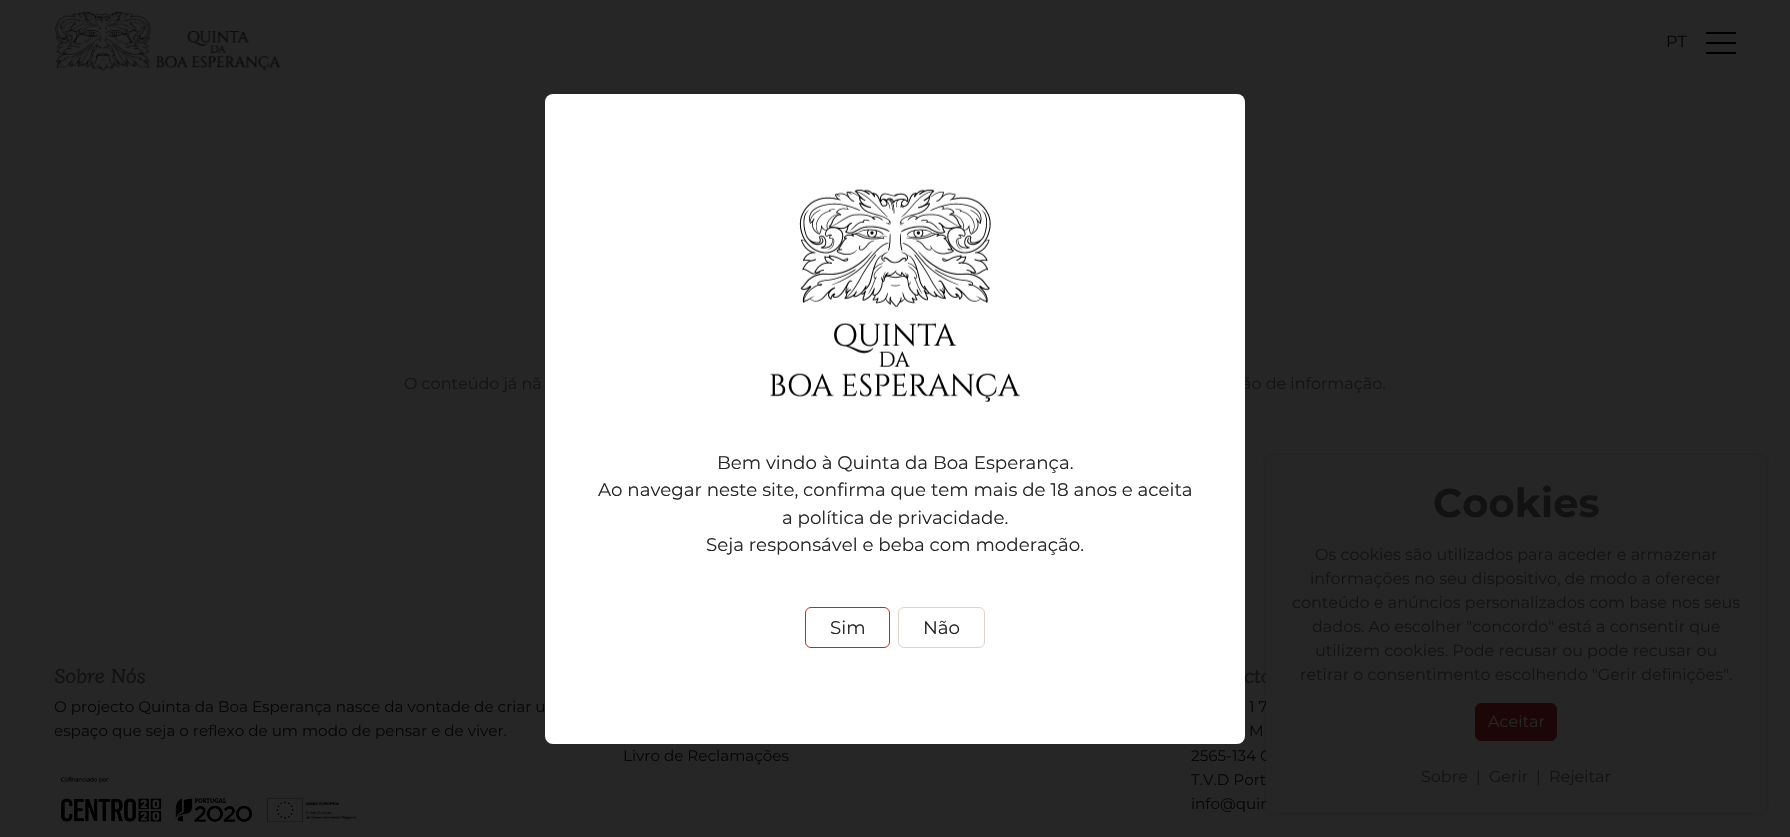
void draw(SkCanvas* canvas) {
    SkPaint paint;
    paint.setAntiAlias(true);
    auto face = [&](const char* family, int weight, float size, bool italic = false) {
        SkFontStyle style(weight, SkFontStyle::kNormal_Width,
            italic ? SkFontStyle::kItalic_Slant : SkFontStyle::kUpright_Slant);
        SkFont result(fontMgr->matchFamilyStyle(family, style), size);
        result.setSubpixel(true);
        return result;
    };
    auto write = [&](const char* s, float x, float y, const SkFont& font, SkColor color) {
        SkPaint ink(SkColor4f::FromColor(color));
        ink.setAntiAlias(true);
        canvas->drawString(s, x, y, font, ink);
    };
    auto block = [&](float x, float y, float w, float h, SkColor color) {
        SkPaint ink(SkColor4f::FromColor(color));
        ink.setAntiAlias(true);
        canvas->drawRect(SkRect::MakeXYWH(x, y, w, h), ink);
    };
    auto card = [&](float x, float y, float w, float h, float radius, SkColor color) {
        SkPaint ink(SkColor4f::FromColor(color));
        ink.setAntiAlias(true);
        canvas->drawRoundRect(SkRect::MakeXYWH(x, y, w, h), radius, radius, ink);
    };
    auto paste = [&](const char* path, float x, float y, float w, float h) {
        auto image = SkImages::DeferredFromEncodedData(SkData::MakeFromFileName(path));
        canvas->drawImageRect(image, SkRect::MakeXYWH(x, y, w, h), SkSamplingOptions());
    };
    canvas->clear(SkColorSetRGB(38, 38, 38));
    paste("pic1.png", 54, 12, 227, 59);
    auto kFont1 = face("Montserrat", 100, 16);
    write("PT", 1666, 47, kFont1, SkColorSetRGB(5, 6, 6));
    block(1706, 32, 30, 2, SK_ColorBLACK);
    block(1706, 42, 30, 2, SK_ColorBLACK);
    block(1706, 52, 30, 2, SK_ColorBLACK);
    write("O conteúdo já nã", 404, 389, kFont1, SkColorSetRGB(18, 18, 18));
    write("ão de informação.", 1242, 389, kFont1, SkColorSetRGB(18, 18, 18));
    auto kFont2 = face("Diphylleia", 700, 20);
    write("cto", 1244, 683, kFont2, SkColorSetRGB(18, 18, 18));
    card(545, 94, 700, 650, 8, SK_ColorWHITE);
    paste("pic2.png", 770, 189, 250, 213);
    auto kFont3 = face("Montserrat", 100, 18.25f);
    write("Bem vindo à Quinta da Boa Esperança.", 717, 469, kFont3, SkColorSetRGB(38, 38, 38));
    write("Ao navegar neste site, confirma que tem mais de 18 anos e aceita", 598, 496, kFont3, SkColorSetRGB(38, 38, 38));
    write("a política de privacidade.", 782, 524, kFont3, SkColorSetRGB(38, 38, 38));
    write("Seja responsável e beba com moderação.", 706, 551, kFont3, SkColorSetRGB(38, 38, 38));
    paint.setStyle(SkPaint::kStroke_Style);
    paint.setStrokeWidth(1);
    paint.setColor(SkColorSetRGB(193, 39, 44));
    canvas->drawRoundRect(SkRect::MakeXYWH(805.5f, 607.5f, 84, 40), 5.5f, 5.5f, paint);
    write("Sim", 830, 634, kFont3, SkColorSetRGB(38, 38, 38));
    paint.setColor(SkColorSetRGB(222, 212, 204));
    canvas->drawRoundRect(SkRect::MakeXYWH(898.5f, 607.5f, 86, 40), 5.5f, 5.5f, paint);
    write("Não", 923, 634, kFont3, SkColorSetRGB(38, 38, 38));
    paint.setStyle(SkPaint::kFill_Style);
    paint.setColor(SkColorSetARGB(179, 32, 32, 32));
    paint.setMaskFilter(SkMaskFilter::MakeBlur(kNormal_SkBlurStyle, 2.5f));
    canvas->drawRoundRect(SkRect::MakeXYWH(1265, 454, 502, 360), 9, 9, paint);
    paint.setMaskFilter(nullptr);
    auto kFont4 = face("Montserrat", 100, 15.2f);
    write("1 7", 1249, 712, kFont4, SkColorSetRGB(5, 6, 6));
    write("2565-134 C", 1191, 761, kFont4, SkColorSetRGB(5, 6, 6));
    write("info@quin", 1191, 809, kFont4, SkColorSetRGB(5, 6, 6));
    card(1266, 455, 500, 358, 8, SkColorSetRGB(38, 38, 38));
    auto kFont5 = face("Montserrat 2", 100, 40);
    write("Cookies", 1433, 517, kFont5, SkColorSetRGB(18, 18, 18));
    write("Os cookies são utilizados para aceder e armazenar", 1315, 560, kFont1, SkColorSetRGB(18, 18, 18));
    write("informações no seu dispositivo, de modo a oferecer", 1310, 584, kFont1, SkColorSetRGB(18, 18, 18));
    write("conteúdo e anúncios personalizados com base nos seus", 1292, 608, kFont1, SkColorSetRGB(18, 18, 18));
    write("dados. Ao escolher \"concordo\" está a consentir que", 1312, 632, kFont1, SkColorSetRGB(18, 18, 18));
    write("utilizem cookies. Pode recusar ou pode recusar ou", 1315, 656, kFont1, SkColorSetRGB(18, 18, 18));
    write("retirar o consentimento escolhendo \"Gerir definições\".", 1300, 680, kFont1, SkColorSetRGB(18, 18, 18));
    paint.setColor(SkColorSetRGB(29, 6, 7));
    canvas->drawRoundRect(SkRect::MakeXYWH(1475.5f, 703.5f, 81, 37), 5.5f, 5.5f, paint);
    paint.setStyle(SkPaint::kStroke_Style);
    canvas->drawRoundRect(SkRect::MakeXYWH(1475.5f, 703.5f, 81, 37), 5.5f, 5.5f, paint);
    write("Aceitar", 1488, 727, kFont1, SkColorSetRGB(38, 38, 38));
    write("Sobre", 1421, 782, kFont1, SkColorSetRGB(18, 18, 18));
    write("|", 1476, 782, kFont1, SkColorSetRGB(18, 18, 18));
    write("Gerir", 1489, 782, kFont1, SkColorSetRGB(18, 18, 18));
    write("|", 1536, 782, kFont1, SkColorSetRGB(18, 18, 18));
    write("Rejeitar", 1549, 782, kFont1, SkColorSetRGB(18, 18, 18));
    write("Sobre Nós", 54, 683, kFont2, SkColorSetRGB(18, 18, 18));
    write("O projecto Quinta da Boa Esperança nasce da vontade de criar u", 54, 712, kFont4, SkColorSetRGB(5, 6, 6));
    write("espaço que seja o reflexo de um modo de pensar e de viver.", 54, 736, kFont4, SkColorSetRGB(5, 6, 6));
    paste("pic3.png", 61, 777, 295, 45);
    write("Livro de Reclamações", 623, 761, kFont4, SkColorSetRGB(5, 6, 6));
    write("M", 1249, 736, kFont4, SkColorSetRGB(5, 6, 6));
    write("T.V.D Port", 1191, 785, kFont4, SkColorSetRGB(5, 6, 6));
}
